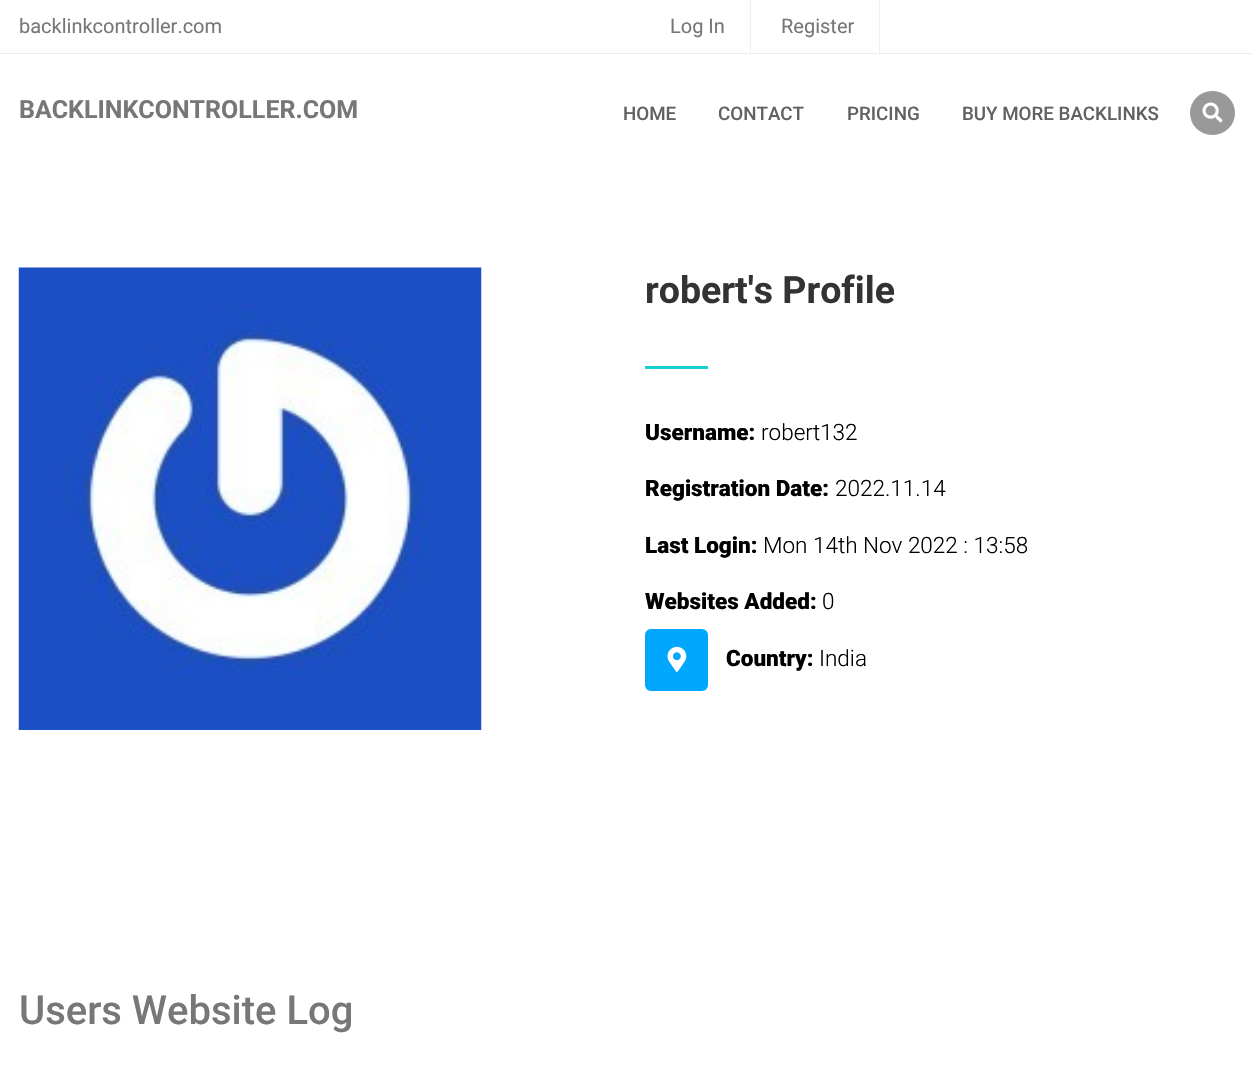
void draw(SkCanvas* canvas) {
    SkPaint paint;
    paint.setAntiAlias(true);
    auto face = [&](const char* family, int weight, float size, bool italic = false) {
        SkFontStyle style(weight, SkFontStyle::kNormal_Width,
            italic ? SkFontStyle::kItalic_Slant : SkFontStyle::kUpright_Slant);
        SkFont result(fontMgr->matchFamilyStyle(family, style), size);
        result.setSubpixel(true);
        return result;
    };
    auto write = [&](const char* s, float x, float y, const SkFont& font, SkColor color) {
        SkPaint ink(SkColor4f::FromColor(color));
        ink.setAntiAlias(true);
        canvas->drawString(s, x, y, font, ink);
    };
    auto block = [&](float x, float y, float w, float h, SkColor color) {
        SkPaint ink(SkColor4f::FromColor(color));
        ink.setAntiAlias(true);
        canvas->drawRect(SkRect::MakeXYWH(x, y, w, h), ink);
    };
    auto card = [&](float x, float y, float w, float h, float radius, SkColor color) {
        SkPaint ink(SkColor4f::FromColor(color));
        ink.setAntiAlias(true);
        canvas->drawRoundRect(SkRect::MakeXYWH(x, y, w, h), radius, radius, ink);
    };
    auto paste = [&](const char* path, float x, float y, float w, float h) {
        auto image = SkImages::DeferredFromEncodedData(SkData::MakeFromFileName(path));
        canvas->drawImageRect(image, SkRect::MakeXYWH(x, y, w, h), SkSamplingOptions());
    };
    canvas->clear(SK_ColorWHITE);
    block(0, 53, 1252, 1, SkColorSetRGB(238, 238, 238));
    auto kFont1 = face("Roboto", 400, 20);
    write("backlinkcontroller.com", 19, 33, kFont1, SkColorSetRGB(119, 119, 119));
    block(750, 0, 1, 53, SkColorSetRGB(238, 238, 238));
    write("Log In", 670, 33, kFont1, SkColorSetRGB(119, 119, 119));
    block(879, 0, 1, 53, SkColorSetRGB(238, 238, 238));
    write("Register", 781, 33, kFont1, SkColorSetRGB(119, 119, 119));
    auto kFont2 = face("Roboto", 700, 25);
    write("BACKLINKCONTROLLER.COM", 19, 118, kFont2, SkColorSetRGB(119, 119, 119));
    auto kFont3 = face("Roboto", 500, 18.75f);
    write("HOME", 623, 120, kFont3, SkColorSetRGB(97, 97, 97));
    write("CONTACT", 718, 120, kFont3, SkColorSetRGB(97, 97, 97));
    write("PRICING", 847, 120, kFont3, SkColorSetRGB(97, 97, 97));
    write("BUY MORE BACKLINKS", 962, 120, kFont3, SkColorSetRGB(97, 97, 97));
    card(1190, 91, 45, 44, 22, SkColorSetRGB(153, 153, 153));
    paste("pic1.png", 1202, 102, 21, 21);
    paste("pic2.png", 18, 267, 464, 463);
    auto kFont4 = face("Roboto", 700, 37.5f);
    write("robert's Profile", 645, 303, kFont4, SkColorSetRGB(51, 51, 51));
    block(645, 366, 63, 3, SkColorSetRGB(23, 208, 207));
    auto kFont5 = face("Roboto", 900, 22.5f);
    write("Username:", 645, 440, kFont5, SK_ColorBLACK);
    auto kFont6 = face("Roboto", 300, 22.5f);
    write("robert132", 761, 440, kFont6, SK_ColorBLACK);
    write("Registration Date:", 645, 496, kFont5, SK_ColorBLACK);
    write("2022.11.14", 835, 496, kFont6, SK_ColorBLACK);
    write("Last Login:", 645, 553, kFont5, SK_ColorBLACK);
    write("Mon 14th Nov 2022 : 13:58", 763, 553, kFont6, SK_ColorBLACK);
    write("Websites Added:", 645, 609, kFont5, SK_ColorBLACK);
    write("0", 822, 609, kFont6, SK_ColorBLACK);
    card(645, 629, 63, 62, 6, SkColorSetRGB(1, 166, 253));
    paste("pic3.png", 667, 646, 20, 26);
    write("Country:", 726, 666, kFont5, SK_ColorBLACK);
    write("India", 819, 666, kFont6, SK_ColorBLACK);
    auto kFont7 = face("Roboto", 500, 40);
    write("Users Website Log", 19, 1024, kFont7, SkColorSetRGB(119, 119, 119));
}
